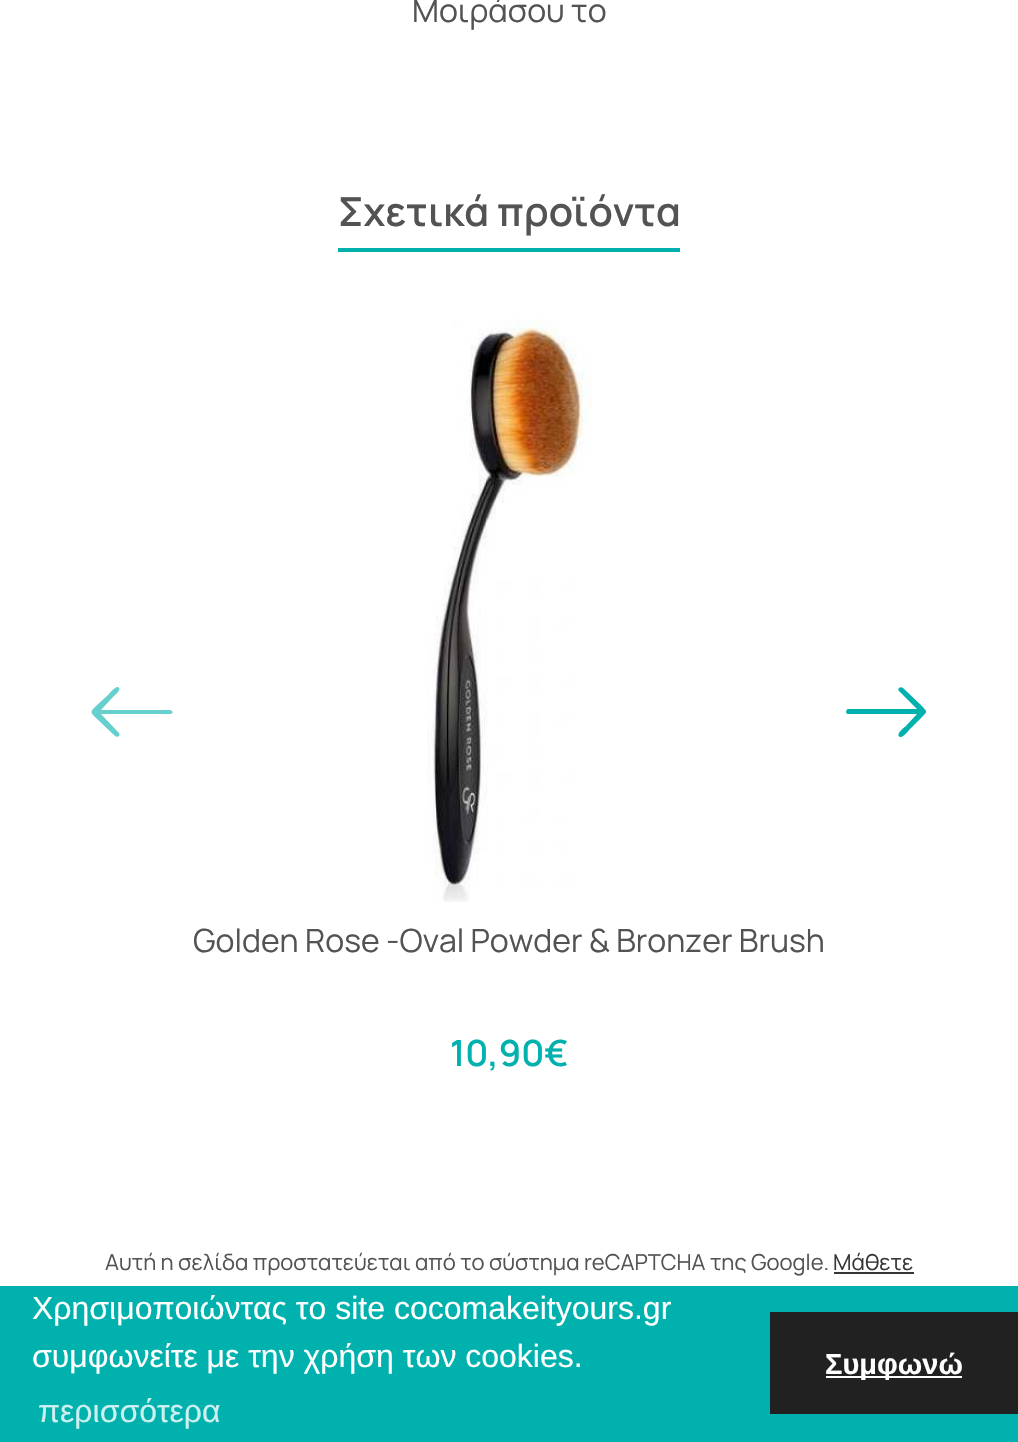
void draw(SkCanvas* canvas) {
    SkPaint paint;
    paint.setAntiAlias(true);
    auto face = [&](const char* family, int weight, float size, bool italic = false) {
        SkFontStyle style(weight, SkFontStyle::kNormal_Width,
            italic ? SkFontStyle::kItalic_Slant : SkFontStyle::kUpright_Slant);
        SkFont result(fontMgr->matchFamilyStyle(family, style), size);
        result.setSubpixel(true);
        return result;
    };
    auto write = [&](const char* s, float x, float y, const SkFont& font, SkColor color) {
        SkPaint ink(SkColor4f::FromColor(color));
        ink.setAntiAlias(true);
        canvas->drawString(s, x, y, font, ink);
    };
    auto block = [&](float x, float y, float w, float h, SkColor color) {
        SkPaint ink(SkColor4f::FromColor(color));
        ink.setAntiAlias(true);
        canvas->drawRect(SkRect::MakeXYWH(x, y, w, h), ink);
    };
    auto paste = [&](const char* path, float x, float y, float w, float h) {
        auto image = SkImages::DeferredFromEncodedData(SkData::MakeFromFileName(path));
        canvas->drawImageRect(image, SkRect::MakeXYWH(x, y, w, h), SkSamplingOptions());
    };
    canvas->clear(SK_ColorWHITE);
    auto kFont1 = face("Manrope", 400, 32);
    write("Μοιράσου το", 412, 22, kFont1, SkColorSetRGB(83, 83, 83));
    auto kFont2 = face("Manrope", 600, 40);
    write("Σχετικά προϊόντα", 338, 226, kFont2, SkColorSetRGB(83, 83, 83));
    block(338, 248, 342, 4, SkColorSetRGB(0, 177, 173));
    paint.setColor(SkColorSetRGB(102, 208, 206));
    canvas->drawPath(SkPathBuilder().moveTo(115, 736).lineTo(96, 718).cubicTo(90, 712, 90, 712, 96, 706).lineTo(108, 695).cubicTo(109, 694, 115, 686, 118, 687).cubicTo(123, 689, 114, 696, 113, 697).lineTo(101, 710).lineTo(170, 710).lineTo(172, 711).cubicTo(175, 715, 167, 714, 158, 714).lineTo(101, 714).lineTo(119, 733).cubicTo(121, 736, 117, 738, 115, 736).close().detach(), paint);
    paint.setColor(SkColorSetRGB(0, 177, 173));
    canvas->drawPath(SkPathBuilder().moveTo(903, 688).lineTo(922, 706).cubicTo(927, 712, 928, 711, 922, 717).lineTo(910, 729).cubicTo(909, 730, 903, 738, 900, 737).cubicTo(895, 735, 904, 727, 905, 727).lineTo(917, 714).lineTo(848, 714).cubicTo(847, 714, 846, 713, 846, 712).cubicTo(846, 711, 847, 709, 848, 709).lineTo(917, 709).lineTo(899, 691).cubicTo(898, 690, 898, 689, 899, 688).cubicTo(900, 687, 902, 687, 903, 688).close().detach(), paint);
    paste("pic1.png", 427, 319, 165, 583);
    write("Golden Rose -Oval Powder & Bronzer Brush", 193, 952, kFont1, SkColorSetRGB(83, 83, 83));
    auto kFont3 = face("Manrope", 600, 36);
    write("10,90€", 450, 1066, kFont3, SkColorSetRGB(0, 177, 173));
    auto kFont4 = face("Manrope", 400, 22);
    write("Αυτή η σελίδα προστατεύεται από το σύστημα reCAPTCHA της Google.", 105, 1270, kFont4, SkColorSetRGB(83, 83, 83));
    write("Μάθετε", 833, 1270, kFont4, SkColorSetRGB(54, 54, 54));
    block(834, 1272, 80, 2, SkColorSetRGB(54, 54, 54));
    block(0, 1286, 1018, 156, SkColorSetRGB(0, 177, 173));
    auto kFont5 = face("Liberation Sans", 400, 32);
    write("Χρησιμοποιώντας το site cocomakeityours.gr", 32, 1319, kFont5, SK_ColorWHITE);
    write("συμφωνείτε με την χρήση των cookies.", 32, 1367, kFont5, SK_ColorWHITE);
    write("περισσότερα", 38, 1422, kFont5, SkColorSetRGB(204, 239, 239));
    block(770, 1312, 248, 102, SkColorSetRGB(33, 33, 33));
    block(826, 1376, 136, 2, SK_ColorWHITE);
    auto kFont6 = face("Liberation Sans", 700, 29);
    write("Συμφωνώ", 825, 1374, kFont6, SK_ColorWHITE);
}
